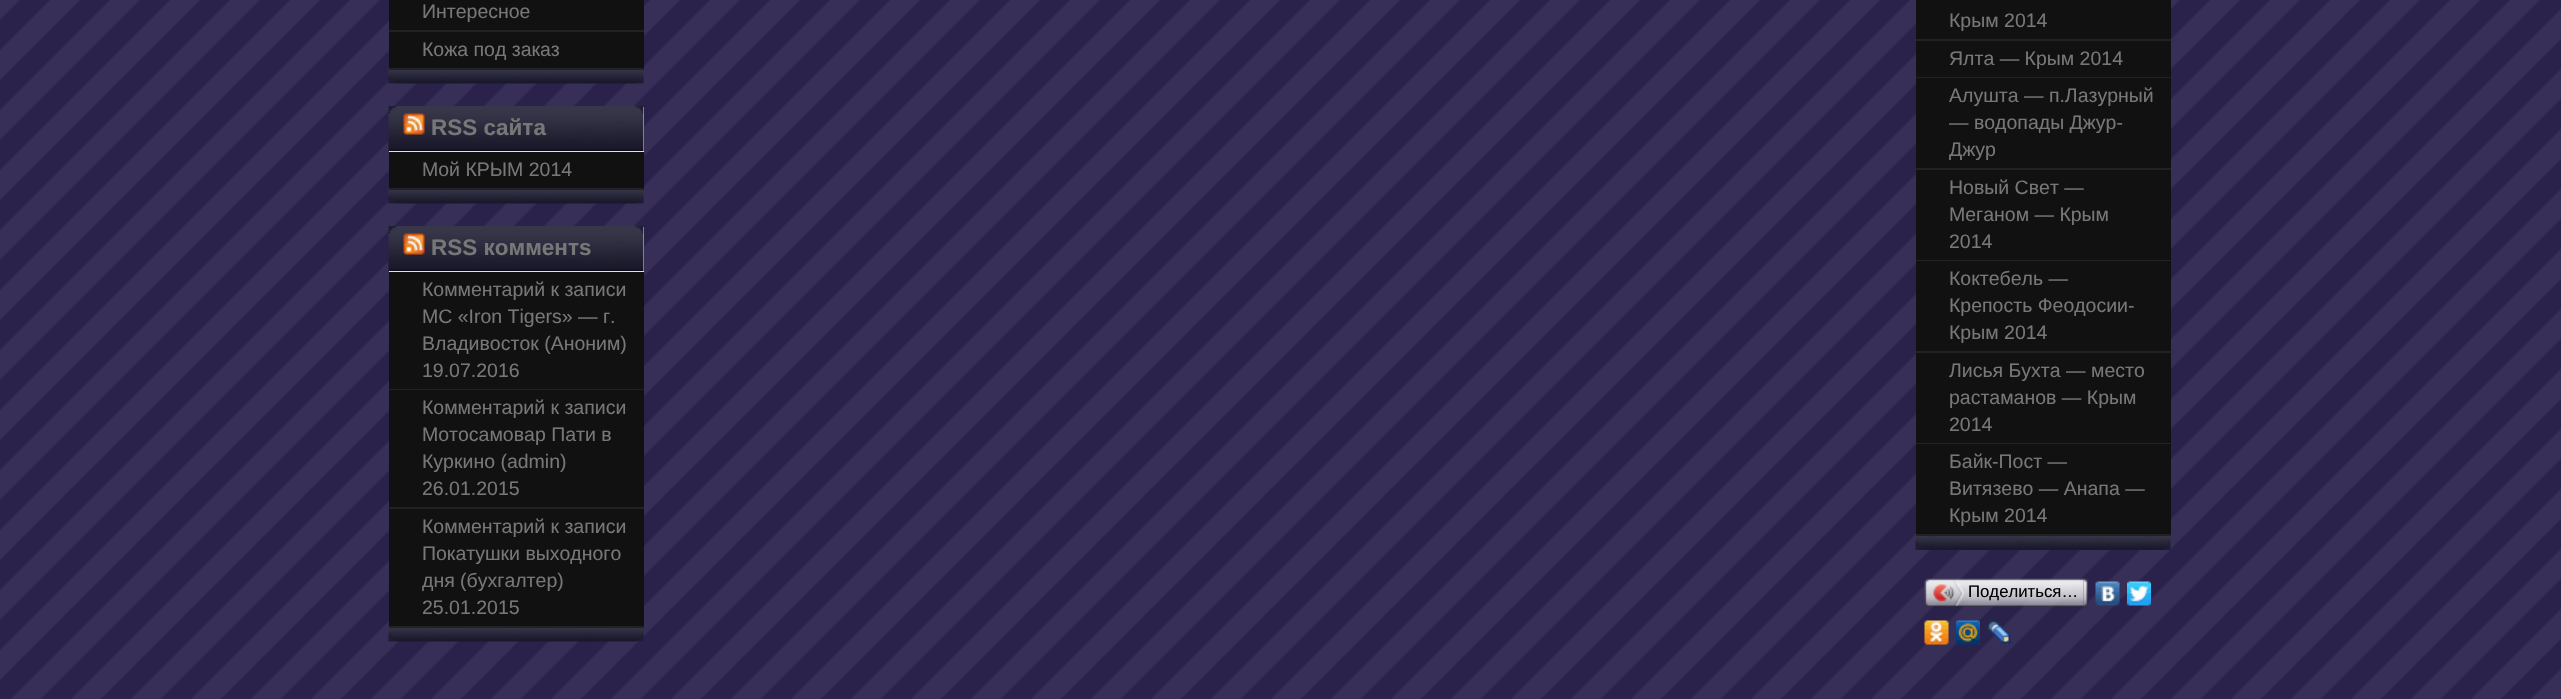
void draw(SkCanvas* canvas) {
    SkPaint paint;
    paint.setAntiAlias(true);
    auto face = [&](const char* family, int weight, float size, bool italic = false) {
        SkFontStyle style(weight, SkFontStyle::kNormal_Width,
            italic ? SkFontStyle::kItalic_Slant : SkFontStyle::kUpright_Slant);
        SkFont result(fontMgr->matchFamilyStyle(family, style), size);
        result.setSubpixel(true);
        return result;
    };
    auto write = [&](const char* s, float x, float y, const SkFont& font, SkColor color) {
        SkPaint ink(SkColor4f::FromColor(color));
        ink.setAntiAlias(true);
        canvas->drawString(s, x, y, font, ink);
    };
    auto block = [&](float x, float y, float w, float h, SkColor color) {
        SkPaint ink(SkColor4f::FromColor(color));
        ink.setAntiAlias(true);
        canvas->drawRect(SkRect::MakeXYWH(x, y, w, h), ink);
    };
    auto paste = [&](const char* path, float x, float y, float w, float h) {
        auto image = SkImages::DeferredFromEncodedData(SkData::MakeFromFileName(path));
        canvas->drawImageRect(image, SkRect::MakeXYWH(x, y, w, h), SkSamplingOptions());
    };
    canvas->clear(SK_ColorWHITE);
    paste("pic1.png", 0, 0, 2561, 699);
    paste("pic2.png", 388, 65, 256, 19);
    block(389, 0, 255, 30, SkColorSetRGB(17, 17, 17));
    block(389, 30, 255, 2, SkColorSetRGB(34, 34, 34));
    auto kFont1 = face("Liberation Sans", 400, 19.5f);
    write("Интересное", 422, 18, kFont1, SkColorSetRGB(119, 119, 119));
    block(389, 32, 255, 36, SkColorSetRGB(17, 17, 17));
    block(389, 68, 255, 2, SkColorSetRGB(34, 34, 34));
    write("Кожа под заказ", 422, 56, kFont1, SkColorSetRGB(119, 119, 119));
    block(389, 107, 255, 45, SkColorSetRGB(219, 226, 245));
    paste("pic3.png", 388, 106, 256, 45);
    paste("pic4.png", 403, 113, 22, 22);
    auto kFont2 = face("Liberation Sans", 700, 22.5f);
    write("RSS сайта", 431, 135, kFont2, SkColorSetRGB(119, 119, 119));
    paste("pic2.png", 388, 185, 256, 19);
    block(389, 152, 255, 36, SkColorSetRGB(17, 17, 17));
    block(389, 188, 255, 2, SkColorSetRGB(34, 34, 34));
    write("Мой КРЫМ 2014", 422, 176, kFont1, SkColorSetRGB(119, 119, 119));
    block(389, 227, 255, 45, SkColorSetRGB(219, 226, 245));
    paste("pic3.png", 388, 226, 256, 45);
    paste("pic4.png", 403, 233, 22, 22);
    write("RSS комментs", 431, 255, kFont2, SkColorSetRGB(119, 119, 119));
    paste("pic5.png", 388, 623, 256, 19);
    block(389, 272, 255, 117, SkColorSetRGB(17, 17, 17));
    block(389, 389, 255, 1, SkColorSetRGB(34, 34, 34));
    write("Комментарий к записи", 422, 296, kFont1, SkColorSetRGB(119, 119, 119));
    write("МС «Iron Tigers» — г.", 422, 323, kFont1, SkColorSetRGB(119, 119, 119));
    write("Владивосток (Аноним)", 422, 350, kFont1, SkColorSetRGB(119, 119, 119));
    write("19.07.2016", 422, 377, kFont1, SkColorSetRGB(119, 119, 119));
    block(389, 390, 255, 117, SkColorSetRGB(17, 17, 17));
    block(389, 507, 255, 2, SkColorSetRGB(34, 34, 34));
    write("Комментарий к записи", 422, 414, kFont1, SkColorSetRGB(119, 119, 119));
    write("Мотосамовар Пати в", 422, 441, kFont1, SkColorSetRGB(119, 119, 119));
    write("Куркино (admin)", 422, 468, kFont1, SkColorSetRGB(119, 119, 119));
    write("26.01.2015", 422, 495, kFont1, SkColorSetRGB(119, 119, 119));
    block(389, 509, 255, 117, SkColorSetRGB(17, 17, 17));
    block(389, 626, 255, 2, SkColorSetRGB(34, 34, 34));
    write("Комментарий к записи", 422, 533, kFont1, SkColorSetRGB(119, 119, 119));
    write("Покатушки выходного", 422, 560, kFont1, SkColorSetRGB(119, 119, 119));
    write("дня (бухгалтер)", 422, 587, kFont1, SkColorSetRGB(119, 119, 119));
    write("25.01.2015", 422, 614, kFont1, SkColorSetRGB(119, 119, 119));
    paste("pic6.png", 1915, 532, 256, 18);
    block(1916, 0, 255, 39, SkColorSetRGB(17, 17, 17));
    block(1916, 39, 255, 2, SkColorSetRGB(34, 34, 34));
    write("Крым 2014", 1949, 27, kFont1, SkColorSetRGB(119, 119, 119));
    block(1916, 41, 255, 36, SkColorSetRGB(17, 17, 17));
    block(1916, 77, 255, 1, SkColorSetRGB(34, 34, 34));
    write("Ялта — Крым 2014", 1949, 65, kFont1, SkColorSetRGB(119, 119, 119));
    block(1916, 78, 255, 90, SkColorSetRGB(17, 17, 17));
    block(1916, 168, 255, 2, SkColorSetRGB(34, 34, 34));
    write("Алушта — п.Лазурный", 1949, 102, kFont1, SkColorSetRGB(119, 119, 119));
    write("— водопады Джур-", 1949, 129, kFont1, SkColorSetRGB(119, 119, 119));
    write("Джур", 1949, 156, kFont1, SkColorSetRGB(119, 119, 119));
    block(1916, 170, 255, 90, SkColorSetRGB(17, 17, 17));
    block(1916, 260, 255, 1, SkColorSetRGB(34, 34, 34));
    write("Новый Свет —", 1949, 194, kFont1, SkColorSetRGB(119, 119, 119));
    write("Меганом — Крым", 1949, 221, kFont1, SkColorSetRGB(119, 119, 119));
    write("2014", 1949, 248, kFont1, SkColorSetRGB(119, 119, 119));
    block(1916, 261, 255, 90, SkColorSetRGB(17, 17, 17));
    block(1916, 351, 255, 2, SkColorSetRGB(34, 34, 34));
    write("Коктебель —", 1949, 285, kFont1, SkColorSetRGB(119, 119, 119));
    write("Крепость Феодосии-", 1949, 312, kFont1, SkColorSetRGB(119, 119, 119));
    write("Крым 2014", 1949, 339, kFont1, SkColorSetRGB(119, 119, 119));
    block(1916, 353, 255, 90, SkColorSetRGB(17, 17, 17));
    block(1916, 443, 255, 1, SkColorSetRGB(34, 34, 34));
    write("Лисья Бухта — место", 1949, 377, kFont1, SkColorSetRGB(119, 119, 119));
    write("растаманов — Крым", 1949, 404, kFont1, SkColorSetRGB(119, 119, 119));
    write("2014", 1949, 431, kFont1, SkColorSetRGB(119, 119, 119));
    block(1916, 444, 255, 90, SkColorSetRGB(17, 17, 17));
    block(1916, 534, 255, 2, SkColorSetRGB(34, 34, 34));
    write("Байк-Пост —", 1949, 468, kFont1, SkColorSetRGB(119, 119, 119));
    write("Витязево — Анапа —", 1949, 495, kFont1, SkColorSetRGB(119, 119, 119));
    write("Крым 2014", 1949, 522, kFont1, SkColorSetRGB(119, 119, 119));
    paste("pic7.png", 1929, 578, 155, 29);
    paste("pic8.png", 1924, 578, 5, 29);
    paste("pic9.png", 1933, 580, 31, 26);
    auto kFont3 = face("Liberation Sans", 400, 16.75f);
    write("Поделиться…", 1968, 597, kFont3, SK_ColorBLACK);
    paste("pic10.png", 2083, 578, 5, 29);
    paste("pic11.png", 2095, 581, 25, 25);
    paste("pic12.png", 2127, 581, 24, 25);
    paste("pic13.png", 1924, 620, 25, 25);
    paste("pic14.png", 1956, 620, 24, 25);
    paste("pic15.png", 1987, 620, 25, 25);
}
